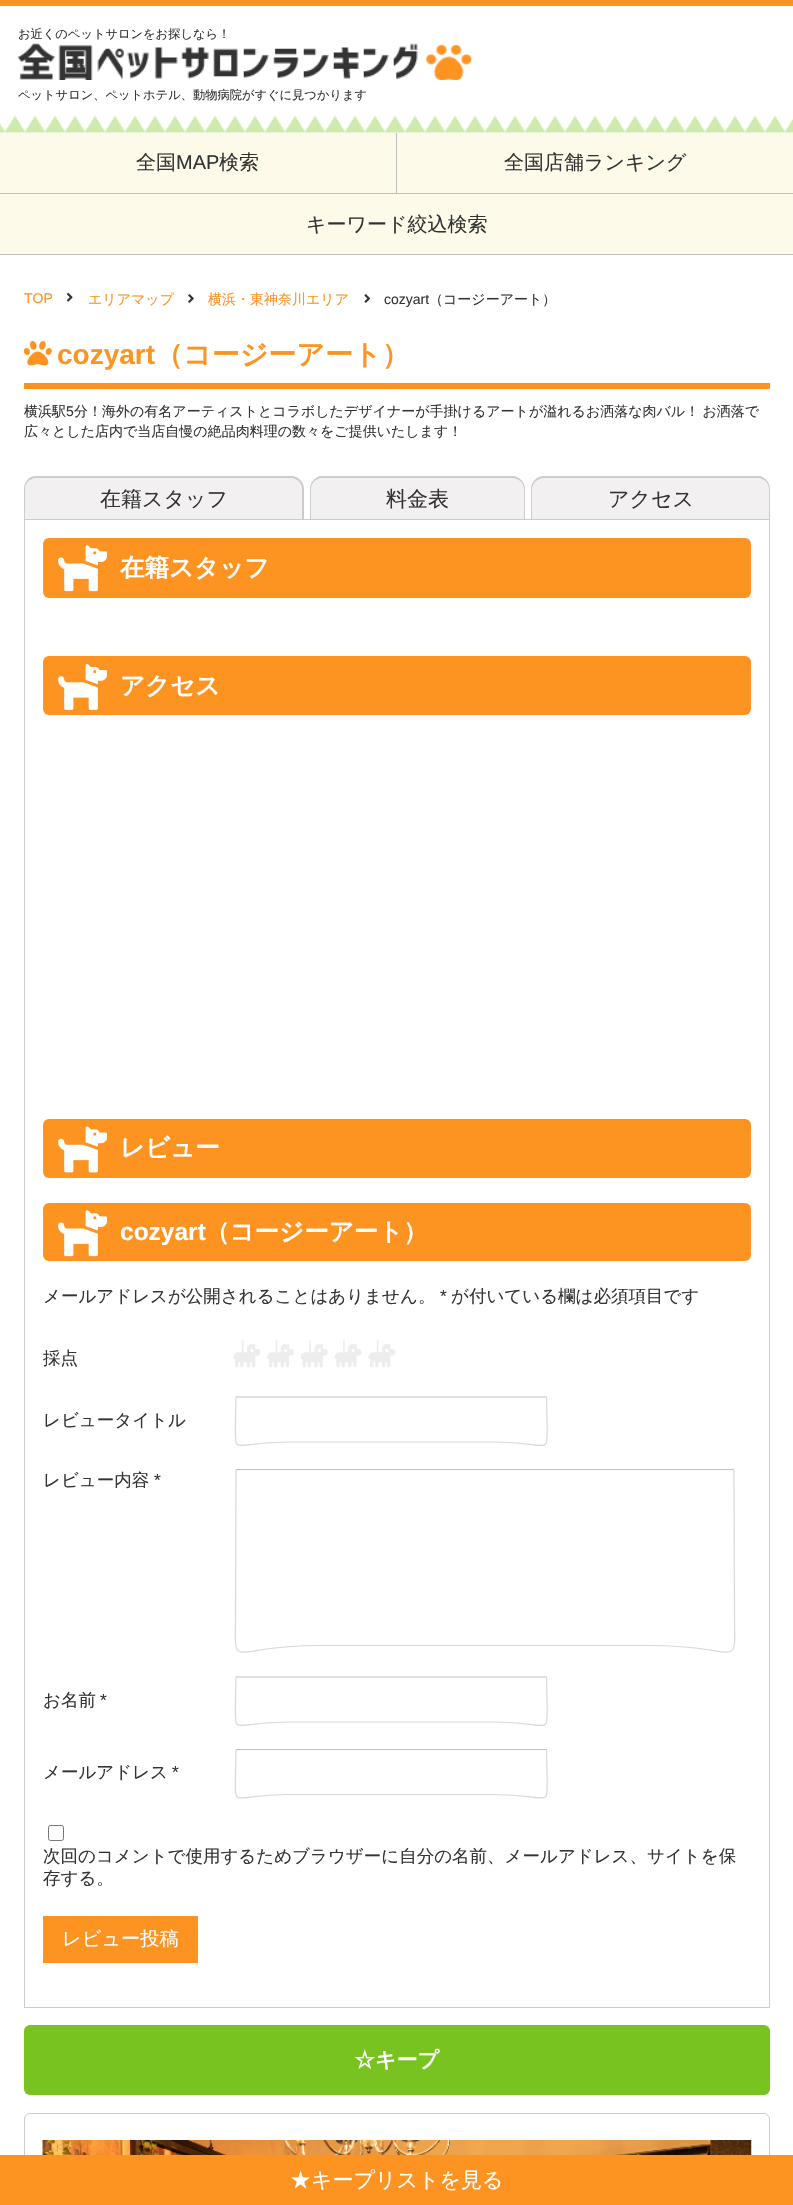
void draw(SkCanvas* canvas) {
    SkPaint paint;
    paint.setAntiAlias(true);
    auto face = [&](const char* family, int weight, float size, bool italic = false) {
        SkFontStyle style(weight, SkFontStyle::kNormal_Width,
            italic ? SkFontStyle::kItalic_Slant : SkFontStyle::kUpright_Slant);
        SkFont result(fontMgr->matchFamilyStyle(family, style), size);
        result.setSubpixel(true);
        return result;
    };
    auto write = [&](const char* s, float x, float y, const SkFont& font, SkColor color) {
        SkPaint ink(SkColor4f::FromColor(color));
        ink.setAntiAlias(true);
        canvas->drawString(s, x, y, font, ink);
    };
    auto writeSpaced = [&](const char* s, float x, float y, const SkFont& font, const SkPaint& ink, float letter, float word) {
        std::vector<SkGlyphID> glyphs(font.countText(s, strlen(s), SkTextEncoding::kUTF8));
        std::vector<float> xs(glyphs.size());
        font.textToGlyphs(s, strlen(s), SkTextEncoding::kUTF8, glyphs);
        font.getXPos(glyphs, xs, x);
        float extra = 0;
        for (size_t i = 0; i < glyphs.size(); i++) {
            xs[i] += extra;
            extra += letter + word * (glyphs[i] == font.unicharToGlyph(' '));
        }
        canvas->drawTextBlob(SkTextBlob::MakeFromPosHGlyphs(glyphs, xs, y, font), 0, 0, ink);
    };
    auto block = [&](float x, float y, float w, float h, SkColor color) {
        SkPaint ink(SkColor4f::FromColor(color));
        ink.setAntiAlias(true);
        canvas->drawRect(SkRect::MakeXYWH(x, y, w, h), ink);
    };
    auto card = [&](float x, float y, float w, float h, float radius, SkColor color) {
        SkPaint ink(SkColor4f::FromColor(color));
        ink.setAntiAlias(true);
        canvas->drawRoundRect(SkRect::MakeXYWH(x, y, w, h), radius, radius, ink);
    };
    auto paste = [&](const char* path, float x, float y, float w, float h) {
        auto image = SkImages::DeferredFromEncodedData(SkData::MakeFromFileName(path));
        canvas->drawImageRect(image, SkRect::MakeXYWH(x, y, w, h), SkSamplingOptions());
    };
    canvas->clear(SK_ColorWHITE);
    block(0, 0, 793, 6, SkColorSetRGB(253, 147, 33));
    paste("pic1.png", 0, 115, 793, 18);
    auto kFont1 = face("WenQuanYi Zen Hei", 500, 12.25f);
    write("お近くのペットサロンをお探しなら！", 18, 38, kFont1, SkColorSetRGB(51, 51, 51));
    paste("pic2.png", 17, 43, 455, 37);
    write("ペットサロン、ペットホテル、動物病院がすぐに見つかります", 18, 99, kFont1, SkColorSetRGB(51, 51, 51));
    block(0, 254, 793, 1, SkColorSetRGB(191, 191, 191));
    block(0, 193, 793, 1, SkColorSetRGB(191, 191, 191));
    block(0, 133, 793, 60, SkColorSetRGB(253, 250, 233));
    block(396, 133, 1, 60, SkColorSetRGB(191, 191, 191));
    auto kFont2 = face("WenQuanYi Zen Hei", 500, 20);
    write("全国", 136, 169, kFont2, SkColorSetRGB(51, 51, 51));
    auto kFont3 = face("Liberation Sans", 400, 20);
    write("MAP", 176, 169, kFont3, SkColorSetRGB(51, 51, 51));
    write("検索", 219, 169, kFont2, SkColorSetRGB(51, 51, 51));
    write("全国店舗ランキング", 504, 169, kFont2, SkColorSetRGB(51, 51, 51));
    block(0, 194, 793, 60, SkColorSetRGB(253, 250, 233));
    write("キーワード絞込検索", 306, 231, kFont2, SkColorSetRGB(51, 51, 51));
    auto kFont4 = face("Liberation Sans", 400, 14);
    write("TOP", 24, 303, kFont4, SkColorSetRGB(253, 147, 33));
    paste("pic3.png", 67, 292, 6, 10);
    auto kFont5 = face("WenQuanYi Zen Hei", 500, 14);
    write("エリアマップ", 88, 304, kFont5, SkColorSetRGB(253, 147, 33));
    paste("pic4.png", 188, 294, 6, 9);
    write("横浜・東神奈川エリア", 208, 304, kFont5, SkColorSetRGB(253, 147, 33));
    paste("pic5.png", 364, 294, 6, 9);
    write("cozyart", 384, 304, kFont4, SkColorSetRGB(51, 51, 51));
    write("（コージーアート）", 429, 304, kFont5, SkColorSetRGB(51, 51, 51));
    block(24, 383, 746, 6, SkColorSetRGB(253, 147, 33));
    paste("pic6.png", 23, 341, 29, 25);
    auto kFont6 = face("Liberation Sans", 700, 28);
    write("cozyart", 57, 364, kFont6, SkColorSetRGB(253, 147, 33));
    auto kFont7 = face("WenQuanYi Zen Hei", 700, 28);
    write("（コージーアート）", 155, 364, kFont7, SkColorSetRGB(253, 147, 33));
    write("横浜駅", 24, 416, kFont5, SkColorSetRGB(51, 51, 51));
    write("5", 66, 416, kFont4, SkColorSetRGB(51, 51, 51));
    paint.setColor(SkColorSetRGB(51, 51, 51));
    writeSpaced("分！海外の有名アーティストとコラボしたデザイナーが手掛けるアートが溢れるお洒落な肉バル！ お洒落で", 74, 416, kFont5, paint, 0, -1);
    write("広々とした店内で当店自慢の絶品肉料理の数々をご提供いたします！", 24, 436, kFont5, SkColorSetRGB(51, 51, 51));
    paint.setColor(SkColorSetRGB(242, 240, 240));
    canvas->drawPath(SkPathBuilder().moveTo(37, 476).lineTo(291, 476).cubicTo(298, 476, 304, 482, 304, 489).lineTo(304, 519).lineTo(24, 519).lineTo(24, 489).cubicTo(24, 482, 30, 476, 37, 476).close().detach(), paint);
    paint.setColor(SkColorSetRGB(204, 204, 204));
    canvas->drawPath(SkPathBuilder(SkPathFillType::kEvenOdd).moveTo(36, 476).lineTo(291, 476).cubicTo(298, 476, 304, 482, 304, 489).lineTo(304, 519).lineTo(24, 519).lineTo(24, 489).cubicTo(24, 482, 29, 476, 36, 476).close().moveTo(36, 478).lineTo(291, 478).cubicTo(297, 478, 302, 483, 302, 489).lineTo(302, 519).lineTo(25, 519).lineTo(25, 489).cubicTo(25, 483, 30, 478, 36, 478).close().detach(), paint);
    auto kFont8 = face("WenQuanYi Zen Hei", 500, 21);
    write("在籍スタッフ", 100, 506, kFont8, SkColorSetRGB(51, 51, 51));
    paint.setColor(SkColorSetRGB(242, 240, 240));
    canvas->drawPath(SkPathBuilder().moveTo(323, 476).lineTo(512, 476).cubicTo(519, 476, 525, 482, 525, 489).lineTo(525, 519).lineTo(310, 519).lineTo(310, 489).cubicTo(310, 482, 316, 476, 323, 476).close().detach(), paint);
    paint.setColor(SkColorSetRGB(204, 204, 204));
    canvas->drawPath(SkPathBuilder(SkPathFillType::kEvenOdd).moveTo(322, 476).lineTo(512, 476).cubicTo(519, 476, 525, 482, 525, 489).lineTo(525, 519).lineTo(310, 519).lineTo(310, 489).cubicTo(310, 482, 316, 476, 322, 476).close().moveTo(322, 478).lineTo(512, 478).cubicTo(519, 478, 524, 483, 524, 489).lineTo(524, 519).lineTo(311, 519).lineTo(311, 489).cubicTo(311, 483, 316, 478, 322, 478).close().detach(), paint);
    write("料金表", 386, 506, kFont8, SkColorSetRGB(51, 51, 51));
    paint.setColor(SkColorSetRGB(242, 240, 240));
    canvas->drawPath(SkPathBuilder().moveTo(544, 476).lineTo(757, 476).cubicTo(764, 476, 770, 482, 770, 489).lineTo(770, 519).lineTo(531, 519).lineTo(531, 489).cubicTo(531, 482, 537, 476, 544, 476).close().detach(), paint);
    paint.setColor(SkColorSetRGB(204, 204, 204));
    canvas->drawPath(SkPathBuilder(SkPathFillType::kEvenOdd).moveTo(544, 476).lineTo(758, 476).cubicTo(764, 476, 770, 482, 770, 489).lineTo(770, 519).lineTo(531, 519).lineTo(531, 489).cubicTo(531, 482, 537, 476, 544, 476).close().moveTo(544, 478).lineTo(758, 478).cubicTo(764, 478, 769, 483, 769, 489).lineTo(769, 519).lineTo(532, 519).lineTo(532, 489).cubicTo(532, 483, 538, 478, 544, 478).close().detach(), paint);
    write("アクセス", 608, 506, kFont8, SkColorSetRGB(51, 51, 51));
    paint.setStyle(SkPaint::kStroke_Style);
    paint.setStrokeWidth(1);
    canvas->drawRect(SkRect::MakeXYWH(24.5f, 519.5f, 745, 1488), paint);
    card(43, 538, 708, 60, 6, SkColorSetRGB(253, 147, 33));
    paste("pic7.png", 58, 545, 50, 47);
    auto kFont9 = face("WenQuanYi Zen Hei", 700, 24.5f);
    write("在籍スタッフ", 120, 576, kFont9, SK_ColorWHITE);
    card(43, 656, 708, 59, 6, SkColorSetRGB(253, 147, 33));
    paste("pic8.png", 58, 663, 50, 47);
    write("アクセス", 120, 694, kFont9, SK_ColorWHITE);
    card(43, 1119, 708, 59, 6, SkColorSetRGB(253, 147, 33));
    paste("pic9.png", 58, 1126, 50, 47);
    write("レビュー", 120, 1156, kFont9, SK_ColorWHITE);
    card(43, 1203, 708, 58, 6, SkColorSetRGB(253, 147, 33));
    paste("pic7.png", 58, 1210, 50, 47);
    auto kFont10 = face("Liberation Sans", 700, 24.5f);
    write("cozyart", 120, 1240, kFont10, SK_ColorWHITE);
    write("（コージーアート）", 205, 1240, kFont9, SK_ColorWHITE);
    auto kFont11 = face("WenQuanYi Zen Hei", 500, 17.5f);
    write("メールアドレスが公開されることはありません。", 43, 1302, kFont11, SkColorSetRGB(51, 51, 51));
    auto kFont12 = face("Liberation Sans", 400, 17.5f);
    write("*", 440, 1302, kFont12, SkColorSetRGB(51, 51, 51));
    write("が付いている欄は必須項目です", 451, 1302, kFont11, SkColorSetRGB(51, 51, 51));
    write("採点", 43, 1364, kFont11, SkColorSetRGB(51, 51, 51));
    paste("pic10.png", 233, 1340, 28, 28);
    paste("pic11.png", 267, 1340, 27, 28);
    paste("pic12.png", 301, 1340, 27, 28);
    paste("pic13.png", 334, 1340, 28, 28);
    paste("pic10.png", 368, 1340, 28, 28);
    write("レビュータイトル", 43, 1426, kFont11, SkColorSetRGB(51, 51, 51));
    paint.setStrokeWidth(1.2f);
    paint.setColor(SkColorSetRGB(192, 192, 192));
    canvas->drawPath(SkPathBuilder().moveTo(236, 1397).lineTo(546.5f, 1397).detach(), paint);
    paint.setColor(SkColorSetRGB(217, 217, 217));
    canvas->drawPath(SkPathBuilder().moveTo(546.5f, 1397).lineTo(547, 1419.5f).cubicTo(547, 1458.5f, 553.5f, 1442, 494.5f, 1442).lineTo(288, 1442).cubicTo(229, 1442, 235.5f, 1458.5f, 235.5f, 1419.5f).lineTo(236, 1397).detach(), paint);
    write("レビュー内容", 43, 1486, kFont11, SkColorSetRGB(51, 51, 51));
    write("*", 154, 1486, kFont12, SkColorSetRGB(51, 51, 51));
    block(236, 1469, 498, 1, SkColorSetRGB(192, 192, 192));
    canvas->drawPath(SkPathBuilder().moveTo(734, 1469.5f).lineTo(734.5f, 1616).cubicTo(734.5f, 1673, 742.5f, 1645.5f, 651, 1645.5f).lineTo(319, 1645.5f).cubicTo(227.5f, 1645.5f, 235.5f, 1673, 235.5f, 1616).lineTo(236, 1469.5f).detach(), paint);
    write("お名前", 43, 1706, kFont11, SkColorSetRGB(51, 51, 51));
    write("*", 100, 1706, kFont12, SkColorSetRGB(51, 51, 51));
    paint.setColor(SkColorSetRGB(192, 192, 192));
    canvas->drawPath(SkPathBuilder().moveTo(236, 1677).lineTo(546.5f, 1677).detach(), paint);
    paint.setColor(SkColorSetRGB(217, 217, 217));
    canvas->drawPath(SkPathBuilder().moveTo(546.5f, 1677).lineTo(547, 1699.5f).cubicTo(547, 1738.5f, 553.5f, 1722, 494.5f, 1722).lineTo(288, 1722).cubicTo(229, 1722, 235.5f, 1738.5f, 235.5f, 1699.5f).lineTo(236, 1677).detach(), paint);
    write("メールアドレス", 43, 1778, kFont11, SkColorSetRGB(51, 51, 51));
    write("*", 172, 1778, kFont12, SkColorSetRGB(51, 51, 51));
    block(236, 1749, 311, 1, SkColorSetRGB(192, 192, 192));
    canvas->drawPath(SkPathBuilder().moveTo(546.5f, 1749.5f).lineTo(547, 1772).cubicTo(547, 1811, 553.5f, 1794.5f, 494.5f, 1794.5f).lineTo(288, 1794.5f).cubicTo(229, 1794.5f, 235.5f, 1811, 235.5f, 1772).lineTo(236, 1749.5f).detach(), paint);
    paint.setStrokeWidth(1);
    paint.setColor(SkColorSetRGB(118, 118, 118));
    canvas->drawRoundRect(SkRect::MakeXYWH(48.5f, 1825.5f, 15, 15), 2, 2, paint);
    write("次回のコメントで使用するためブラウザーに自分の名前、メールアドレス、サイトを保", 43, 1862, kFont11, SkColorSetRGB(51, 51, 51));
    write("存する。", 43, 1884, kFont11, SkColorSetRGB(51, 51, 51));
    block(43, 1916, 155, 47, SkColorSetRGB(253, 147, 33));
    auto kFont13 = face("WenQuanYi Zen Hei", 500, 19.25f);
    write("レビュー投稿", 62, 1945, kFont13, SK_ColorWHITE);
    card(24, 2025, 746, 70, 6, SkColorSetRGB(120, 195, 31));
    auto kFont14 = face("WenQuanYi Zen Hei", 700, 21);
    write("☆キープ", 354, 2067, kFont14, SK_ColorWHITE);
    paint.setColor(SkColorSetRGB(204, 204, 204));
    canvas->drawRoundRect(SkRect::MakeXYWH(24.5f, 2113.5f, 745, 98), 5.5f, 5.5f, paint);
    paste("pic14.png", 42, 2140, 710, 15);
    block(0, 2155, 793, 50, SkColorSetRGB(253, 147, 33));
    write("★キープリストを見る", 290, 2187, kFont8, SK_ColorWHITE);
}
